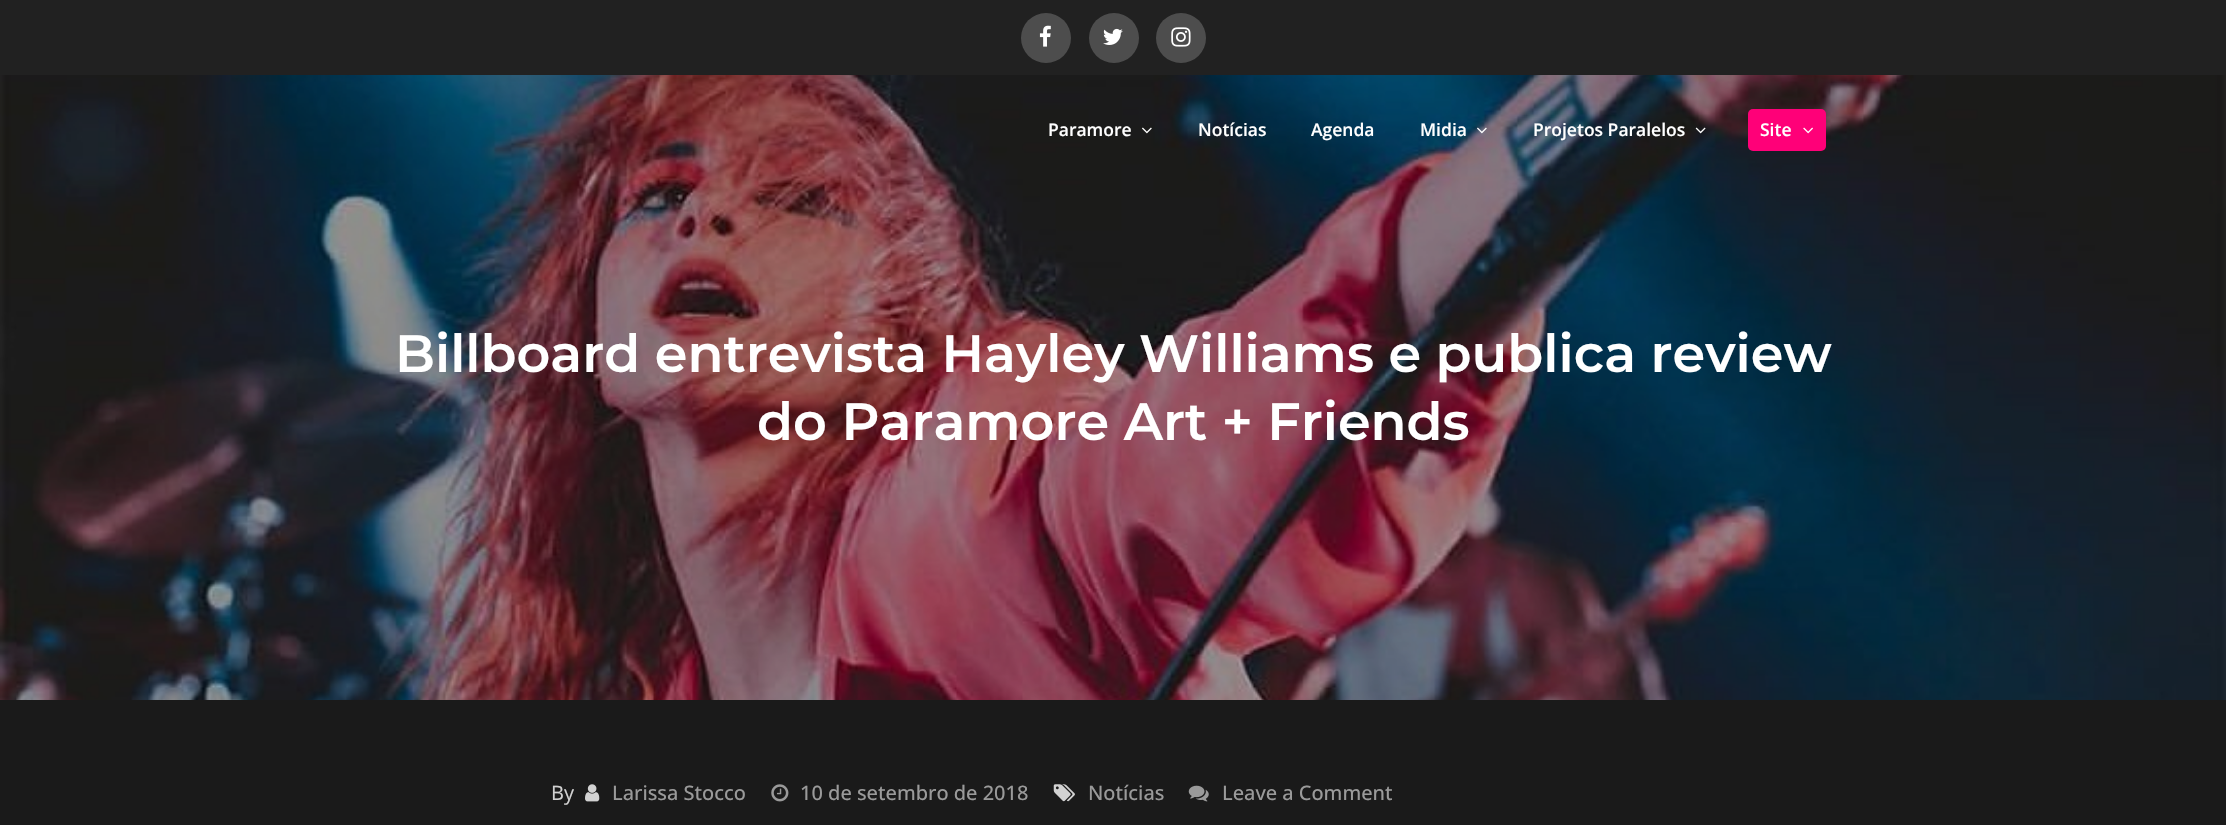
void draw(SkCanvas* canvas) {
    SkPaint paint;
    paint.setAntiAlias(true);
    auto face = [&](const char* family, int weight, float size, bool italic = false) {
        SkFontStyle style(weight, SkFontStyle::kNormal_Width,
            italic ? SkFontStyle::kItalic_Slant : SkFontStyle::kUpright_Slant);
        SkFont result(fontMgr->matchFamilyStyle(family, style), size);
        result.setSubpixel(true);
        return result;
    };
    auto write = [&](const char* s, float x, float y, const SkFont& font, SkColor color) {
        SkPaint ink(SkColor4f::FromColor(color));
        ink.setAntiAlias(true);
        canvas->drawString(s, x, y, font, ink);
    };
    auto block = [&](float x, float y, float w, float h, SkColor color) {
        SkPaint ink(SkColor4f::FromColor(color));
        ink.setAntiAlias(true);
        canvas->drawRect(SkRect::MakeXYWH(x, y, w, h), ink);
    };
    auto card = [&](float x, float y, float w, float h, float radius, SkColor color) {
        SkPaint ink(SkColor4f::FromColor(color));
        ink.setAntiAlias(true);
        canvas->drawRoundRect(SkRect::MakeXYWH(x, y, w, h), radius, radius, ink);
    };
    auto paste = [&](const char* path, float x, float y, float w, float h) {
        auto image = SkImages::DeferredFromEncodedData(SkData::MakeFromFileName(path));
        canvas->drawImageRect(image, SkRect::MakeXYWH(x, y, w, h), SkSamplingOptions());
    };
    canvas->clear(SkColorSetRGB(26, 26, 26));
    block(0, 0, 2226, 75, SkColorSetRGB(33, 33, 33));
    paint.setColor(SkColorSetRGB(77, 77, 77));
    canvas->drawCircle(1046, 38, 25, paint);
    paste("pic1.png", 1039, 25, 12, 22);
    canvas->drawCircle(1114, 38, 25, paint);
    paste("pic2.png", 1103, 28, 20, 17);
    canvas->drawCircle(1181, 38, 25, paint);
    paste("pic3.png", 1171, 27, 20, 20);
    paste("pic8.png", 0, 75, 2226, 625);
    auto kFont1 = face("Open Sans", 600, 17.5f);
    write("Paramore", 1048, 136, kFont1, SK_ColorWHITE);
    paste("pic4.png", 1142, 127, 10, 7);
    write("Notícias", 1198, 136, kFont1, SK_ColorWHITE);
    write("Agenda", 1311, 136, kFont1, SK_ColorWHITE);
    write("Midia", 1420, 136, kFont1, SK_ColorWHITE);
    paste("pic5.png", 1477, 127, 10, 7);
    write("Projetos Paralelos", 1533, 136, kFont1, SK_ColorWHITE);
    paste("pic6.png", 1695, 127, 11, 7);
    card(1748, 109, 78, 42, 5, SkColorSetRGB(255, 0, 120));
    write("Site", 1760, 136, kFont1, SK_ColorWHITE);
    paste("pic7.png", 1803, 127, 10, 7);
    auto kFont2 = face("Montserrat", 600, 52.5f);
    write("Billboard entrevista Hayley Williams e publica review", 395, 372, kFont2, SK_ColorWHITE);
    write("do Paramore Art + Friends", 757, 440, kFont2, SK_ColorWHITE);
    auto kFont3 = face("Open Sans", 400, 20);
    write("By", 551, 800, kFont3, SkColorSetRGB(209, 209, 209));
    paste("pic9.png", 585, 784, 15, 18);
    auto kFont4 = face("Open Sans", 500, 20);
    write("Larissa Stocco", 612, 800, kFont4, SkColorSetRGB(154, 154, 154));
    paste("pic10.png", 771, 784, 18, 18);
    write("10 de setembro de 2018", 800, 800, kFont4, SkColorSetRGB(154, 154, 154));
    paste("pic11.png", 1053, 784, 22, 18);
    write("Notícias", 1088, 800, kFont4, SkColorSetRGB(154, 154, 154));
    paste("pic12.png", 1188, 785, 21, 17);
    write("Leave a Comment", 1222, 800, kFont4, SkColorSetRGB(154, 154, 154));
}
